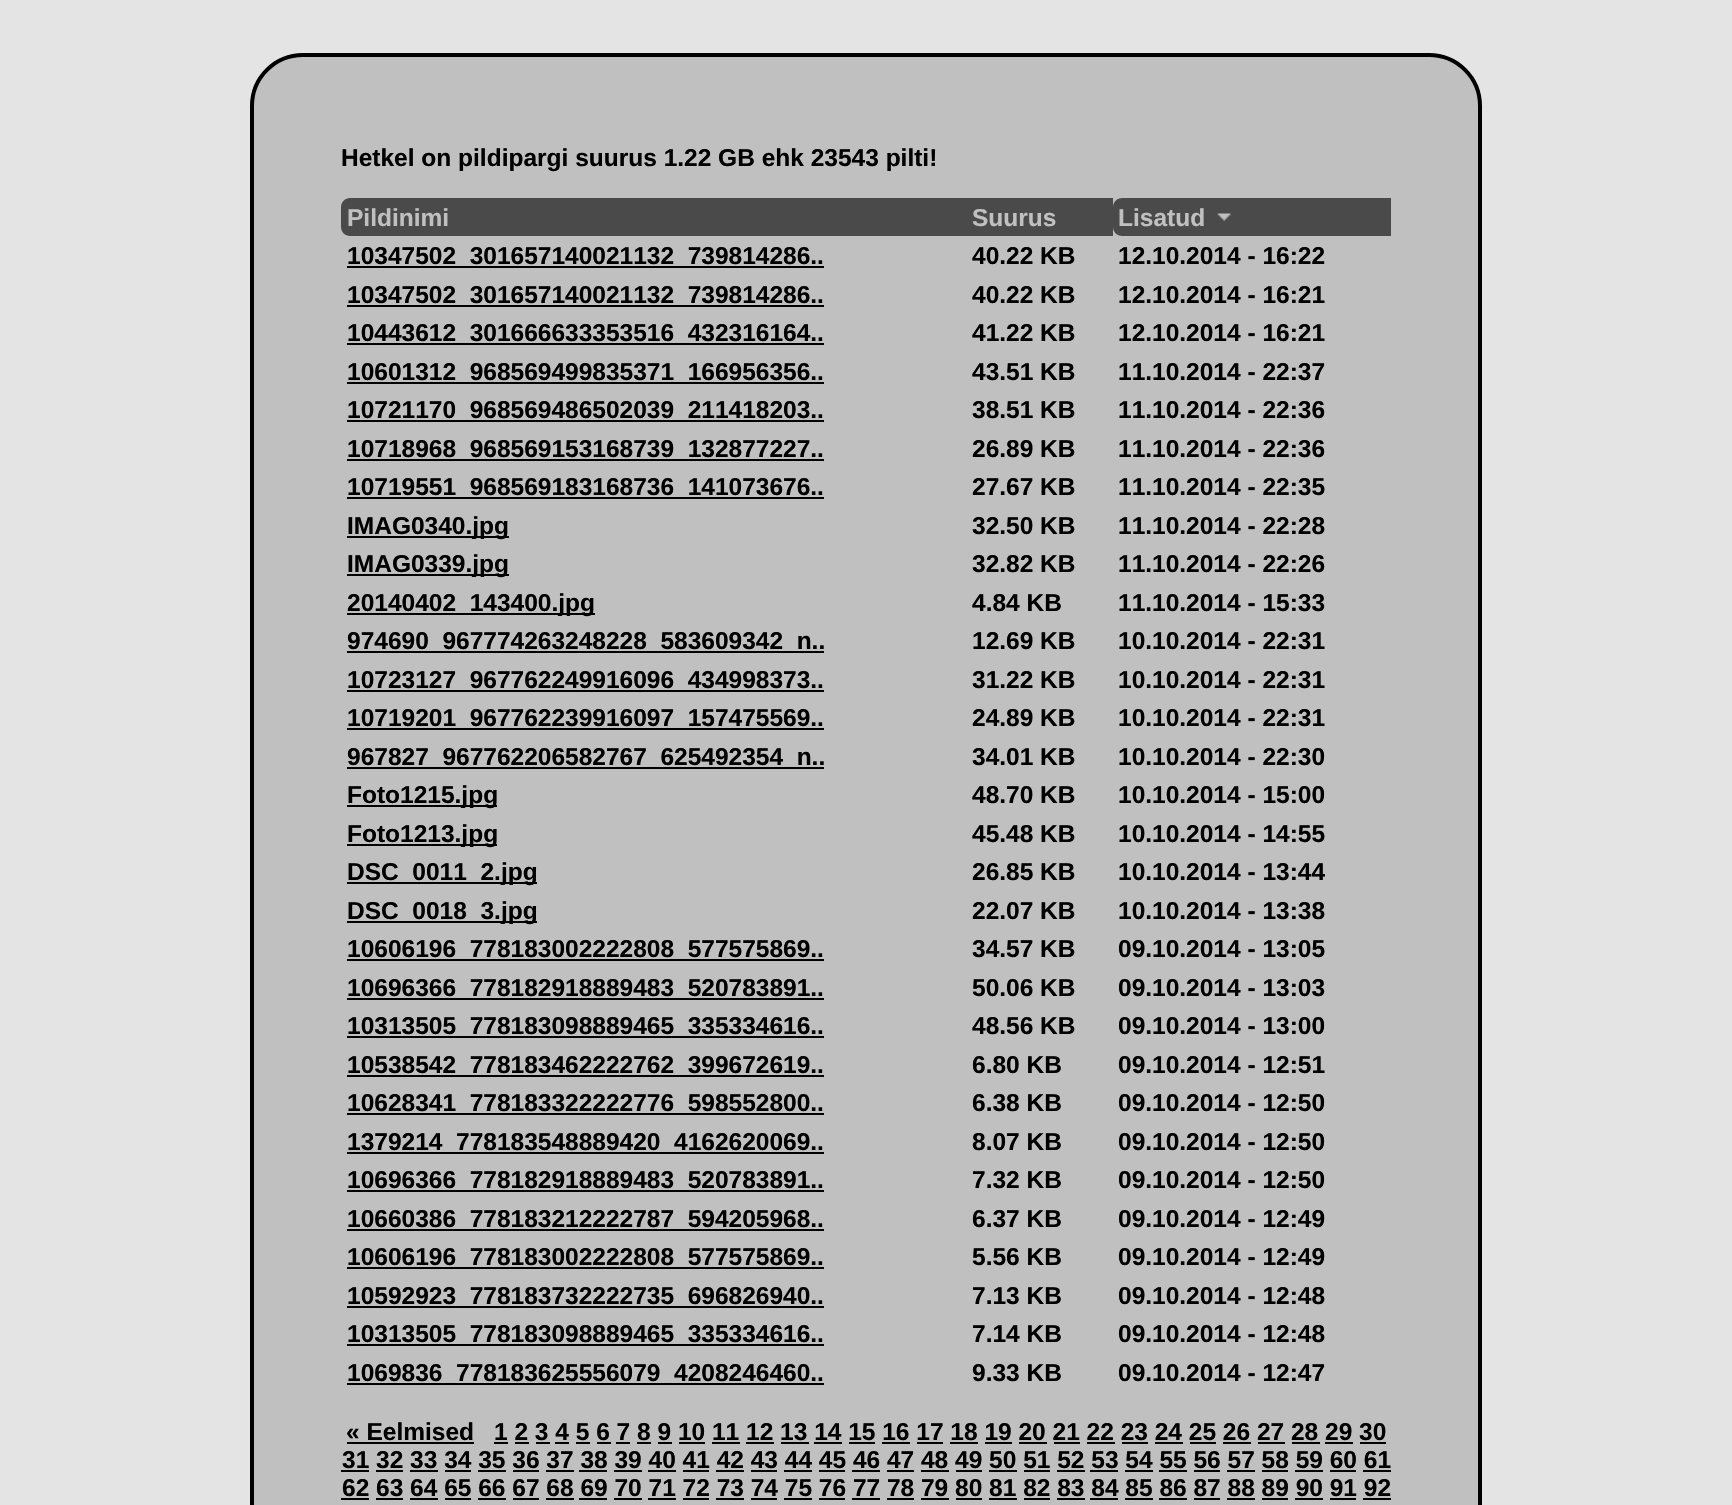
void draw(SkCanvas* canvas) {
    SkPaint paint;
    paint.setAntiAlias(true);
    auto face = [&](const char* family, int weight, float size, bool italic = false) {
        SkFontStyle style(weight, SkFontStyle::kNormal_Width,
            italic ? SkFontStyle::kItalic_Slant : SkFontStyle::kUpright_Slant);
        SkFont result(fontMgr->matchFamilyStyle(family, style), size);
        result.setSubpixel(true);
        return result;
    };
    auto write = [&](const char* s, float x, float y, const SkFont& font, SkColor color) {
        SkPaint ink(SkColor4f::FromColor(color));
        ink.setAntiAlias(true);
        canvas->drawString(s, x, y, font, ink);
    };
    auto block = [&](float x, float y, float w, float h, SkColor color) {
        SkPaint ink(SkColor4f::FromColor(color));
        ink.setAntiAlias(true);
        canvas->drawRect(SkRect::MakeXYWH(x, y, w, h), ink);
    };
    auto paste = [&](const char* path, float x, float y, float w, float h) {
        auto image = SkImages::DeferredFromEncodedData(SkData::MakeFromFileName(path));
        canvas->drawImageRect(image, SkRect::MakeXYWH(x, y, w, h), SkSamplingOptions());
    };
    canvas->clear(SkColorSetRGB(228, 228, 228));
    paint.setColor(SkColorSetRGB(192, 192, 192));
    canvas->drawRoundRect(SkRect::MakeXYWH(252, 55, 1228, 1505), 51, 51, paint);
    paint.setStyle(SkPaint::kStroke_Style);
    paint.setStrokeWidth(4);
    paint.setColor(SK_ColorBLACK);
    canvas->drawRoundRect(SkRect::MakeXYWH(252, 55, 1228, 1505), 51, 51, paint);
    auto kFont1 = face("Liberation Sans", 700, 24.5f);
    write("Hetkel on pildipargi suurus 1.22 GB ehk 23543 pilti!", 341, 166, kFont1, SK_ColorBLACK);
    paint.setStyle(SkPaint::kFill_Style);
    paint.setColor(SkColorSetRGB(74, 74, 74));
    canvas->drawPath(SkPathBuilder().moveTo(350, 198).lineTo(966, 198).lineTo(966, 236).lineTo(350, 236).cubicTo(345, 236, 341, 232, 341, 227).lineTo(341, 207).cubicTo(341, 202, 345, 198, 350, 198).close().detach(), paint);
    write("Pildinimi", 347, 226, kFont1, SkColorSetRGB(192, 192, 192));
    block(966, 198, 147, 38, SkColorSetRGB(74, 74, 74));
    write("Suurus", 972, 226, kFont1, SkColorSetRGB(192, 192, 192));
    canvas->drawPath(SkPathBuilder().moveTo(1122, 198).lineTo(1391, 198).lineTo(1391, 236).lineTo(1122, 236).cubicTo(1117, 236, 1113, 232, 1113, 227).lineTo(1113, 207).cubicTo(1113, 202, 1117, 198, 1122, 198).close().detach(), paint);
    write("Lisatud", 1118, 226, kFont1, SkColorSetRGB(192, 192, 192));
    paste("pic1.png", 1217, 213, 14, 8);
    block(347, 266, 477, 2, SK_ColorBLACK);
    write("10347502_301657140021132_739814286..", 347, 264, kFont1, SK_ColorBLACK);
    write("40.22 KB", 972, 264, kFont1, SK_ColorBLACK);
    write("12.10.2014 - 16:22", 1118, 264, kFont1, SK_ColorBLACK);
    block(347, 305, 477, 2, SK_ColorBLACK);
    write("10347502_301657140021132_739814286..", 347, 303, kFont1, SK_ColorBLACK);
    write("40.22 KB", 972, 303, kFont1, SK_ColorBLACK);
    write("12.10.2014 - 16:21", 1118, 303, kFont1, SK_ColorBLACK);
    block(347, 343, 477, 2, SK_ColorBLACK);
    write("10443612_301666633353516_432316164..", 347, 341, kFont1, SK_ColorBLACK);
    write("41.22 KB", 972, 341, kFont1, SK_ColorBLACK);
    write("12.10.2014 - 16:21", 1118, 341, kFont1, SK_ColorBLACK);
    block(347, 382, 477, 2, SK_ColorBLACK);
    write("10601312_968569499835371_166956356..", 347, 380, kFont1, SK_ColorBLACK);
    write("43.51 KB", 972, 380, kFont1, SK_ColorBLACK);
    write("11.10.2014 - 22:37", 1118, 380, kFont1, SK_ColorBLACK);
    block(347, 420, 477, 2, SK_ColorBLACK);
    write("10721170_968569486502039_211418203..", 347, 418, kFont1, SK_ColorBLACK);
    write("38.51 KB", 972, 418, kFont1, SK_ColorBLACK);
    write("11.10.2014 - 22:36", 1118, 418, kFont1, SK_ColorBLACK);
    block(347, 459, 477, 2, SK_ColorBLACK);
    write("10718968_968569153168739_132877227..", 347, 457, kFont1, SK_ColorBLACK);
    write("26.89 KB", 972, 457, kFont1, SK_ColorBLACK);
    write("11.10.2014 - 22:36", 1118, 457, kFont1, SK_ColorBLACK);
    block(347, 497, 477, 2, SK_ColorBLACK);
    write("10719551_968569183168736_141073676..", 347, 495, kFont1, SK_ColorBLACK);
    write("27.67 KB", 972, 495, kFont1, SK_ColorBLACK);
    write("11.10.2014 - 22:35", 1118, 495, kFont1, SK_ColorBLACK);
    block(347, 536, 162, 2, SK_ColorBLACK);
    write("IMAG0340.jpg", 347, 534, kFont1, SK_ColorBLACK);
    write("32.50 KB", 972, 534, kFont1, SK_ColorBLACK);
    write("11.10.2014 - 22:28", 1118, 534, kFont1, SK_ColorBLACK);
    block(347, 574, 162, 2, SK_ColorBLACK);
    write("IMAG0339.jpg", 347, 572, kFont1, SK_ColorBLACK);
    write("32.82 KB", 972, 572, kFont1, SK_ColorBLACK);
    write("11.10.2014 - 22:26", 1118, 572, kFont1, SK_ColorBLACK);
    block(347, 613, 248, 2, SK_ColorBLACK);
    write("20140402_143400.jpg", 347, 611, kFont1, SK_ColorBLACK);
    write("4.84 KB", 972, 611, kFont1, SK_ColorBLACK);
    write("11.10.2014 - 15:33", 1118, 611, kFont1, SK_ColorBLACK);
    block(347, 651, 477, 2, SK_ColorBLACK);
    write("974690_967774263248228_583609342_n..", 347, 649, kFont1, SK_ColorBLACK);
    write("12.69 KB", 972, 649, kFont1, SK_ColorBLACK);
    write("10.10.2014 - 22:31", 1118, 649, kFont1, SK_ColorBLACK);
    block(347, 690, 477, 2, SK_ColorBLACK);
    write("10723127_967762249916096_434998373..", 347, 688, kFont1, SK_ColorBLACK);
    write("31.22 KB", 972, 688, kFont1, SK_ColorBLACK);
    write("10.10.2014 - 22:31", 1118, 688, kFont1, SK_ColorBLACK);
    block(347, 728, 477, 2, SK_ColorBLACK);
    write("10719201_967762239916097_157475569..", 347, 726, kFont1, SK_ColorBLACK);
    write("24.89 KB", 972, 726, kFont1, SK_ColorBLACK);
    write("10.10.2014 - 22:31", 1118, 726, kFont1, SK_ColorBLACK);
    block(347, 767, 477, 2, SK_ColorBLACK);
    write("967827_967762206582767_625492354_n..", 347, 765, kFont1, SK_ColorBLACK);
    write("34.01 KB", 972, 765, kFont1, SK_ColorBLACK);
    write("10.10.2014 - 22:30", 1118, 765, kFont1, SK_ColorBLACK);
    block(347, 805, 150, 2, SK_ColorBLACK);
    write("Foto1215.jpg", 347, 803, kFont1, SK_ColorBLACK);
    write("48.70 KB", 972, 803, kFont1, SK_ColorBLACK);
    write("10.10.2014 - 15:00", 1118, 803, kFont1, SK_ColorBLACK);
    block(347, 844, 150, 2, SK_ColorBLACK);
    write("Foto1213.jpg", 347, 842, kFont1, SK_ColorBLACK);
    write("45.48 KB", 972, 842, kFont1, SK_ColorBLACK);
    write("10.10.2014 - 14:55", 1118, 842, kFont1, SK_ColorBLACK);
    block(347, 882, 190, 2, SK_ColorBLACK);
    write("DSC_0011_2.jpg", 347, 880, kFont1, SK_ColorBLACK);
    write("26.85 KB", 972, 880, kFont1, SK_ColorBLACK);
    write("10.10.2014 - 13:44", 1118, 880, kFont1, SK_ColorBLACK);
    block(347, 921, 190, 2, SK_ColorBLACK);
    write("DSC_0018_3.jpg", 347, 919, kFont1, SK_ColorBLACK);
    write("22.07 KB", 972, 919, kFont1, SK_ColorBLACK);
    write("10.10.2014 - 13:38", 1118, 919, kFont1, SK_ColorBLACK);
    block(347, 959, 477, 2, SK_ColorBLACK);
    write("10606196_778183002222808_577575869..", 347, 957, kFont1, SK_ColorBLACK);
    write("34.57 KB", 972, 957, kFont1, SK_ColorBLACK);
    write("09.10.2014 - 13:05", 1118, 957, kFont1, SK_ColorBLACK);
    block(347, 998, 477, 2, SK_ColorBLACK);
    write("10696366_778182918889483_520783891..", 347, 996, kFont1, SK_ColorBLACK);
    write("50.06 KB", 972, 996, kFont1, SK_ColorBLACK);
    write("09.10.2014 - 13:03", 1118, 996, kFont1, SK_ColorBLACK);
    block(347, 1036, 477, 2, SK_ColorBLACK);
    write("10313505_778183098889465_335334616..", 347, 1034, kFont1, SK_ColorBLACK);
    write("48.56 KB", 972, 1034, kFont1, SK_ColorBLACK);
    write("09.10.2014 - 13:00", 1118, 1034, kFont1, SK_ColorBLACK);
    block(347, 1075, 477, 2, SK_ColorBLACK);
    write("10538542_778183462222762_399672619..", 347, 1073, kFont1, SK_ColorBLACK);
    write("6.80 KB", 972, 1073, kFont1, SK_ColorBLACK);
    write("09.10.2014 - 12:51", 1118, 1073, kFont1, SK_ColorBLACK);
    block(347, 1113, 477, 2, SK_ColorBLACK);
    write("10628341_778183322222776_598552800..", 347, 1111, kFont1, SK_ColorBLACK);
    write("6.38 KB", 972, 1111, kFont1, SK_ColorBLACK);
    write("09.10.2014 - 12:50", 1118, 1111, kFont1, SK_ColorBLACK);
    block(347, 1152, 477, 2, SK_ColorBLACK);
    write("1379214_778183548889420_4162620069..", 347, 1150, kFont1, SK_ColorBLACK);
    write("8.07 KB", 972, 1150, kFont1, SK_ColorBLACK);
    write("09.10.2014 - 12:50", 1118, 1150, kFont1, SK_ColorBLACK);
    block(347, 1190, 477, 2, SK_ColorBLACK);
    write("10696366_778182918889483_520783891..", 347, 1188, kFont1, SK_ColorBLACK);
    write("7.32 KB", 972, 1188, kFont1, SK_ColorBLACK);
    write("09.10.2014 - 12:50", 1118, 1188, kFont1, SK_ColorBLACK);
    block(347, 1229, 477, 2, SK_ColorBLACK);
    write("10660386_778183212222787_594205968..", 347, 1227, kFont1, SK_ColorBLACK);
    write("6.37 KB", 972, 1227, kFont1, SK_ColorBLACK);
    write("09.10.2014 - 12:49", 1118, 1227, kFont1, SK_ColorBLACK);
    block(347, 1267, 477, 2, SK_ColorBLACK);
    write("10606196_778183002222808_577575869..", 347, 1265, kFont1, SK_ColorBLACK);
    write("5.56 KB", 972, 1265, kFont1, SK_ColorBLACK);
    write("09.10.2014 - 12:49", 1118, 1265, kFont1, SK_ColorBLACK);
    block(347, 1306, 477, 2, SK_ColorBLACK);
    write("10592923_778183732222735_696826940..", 347, 1304, kFont1, SK_ColorBLACK);
    write("7.13 KB", 972, 1304, kFont1, SK_ColorBLACK);
    write("09.10.2014 - 12:48", 1118, 1304, kFont1, SK_ColorBLACK);
    block(347, 1344, 477, 2, SK_ColorBLACK);
    write("10313505_778183098889465_335334616..", 347, 1342, kFont1, SK_ColorBLACK);
    write("7.14 KB", 972, 1342, kFont1, SK_ColorBLACK);
    write("09.10.2014 - 12:48", 1118, 1342, kFont1, SK_ColorBLACK);
    block(347, 1383, 477, 2, SK_ColorBLACK);
    write("1069836_778183625556079_4208246460..", 347, 1381, kFont1, SK_ColorBLACK);
    write("9.33 KB", 972, 1381, kFont1, SK_ColorBLACK);
    write("09.10.2014 - 12:47", 1118, 1381, kFont1, SK_ColorBLACK);
    write("« Eelmised", 346, 1440, kFont1, SK_ColorBLACK);
    block(347, 1442, 127, 2, SK_ColorBLACK);
    write("1 2 3 4 5 6 7 8 9 10 11 12 13 14 15 16 17 18 19 20 21 22 23 24 25 26 27 28 29 30", 494, 1440, kFont1, SK_ColorBLACK);
    block(494, 1442, 14, 2, SK_ColorBLACK);
    block(515, 1442, 14, 2, SK_ColorBLACK);
    block(536, 1442, 14, 2, SK_ColorBLACK);
    block(555, 1442, 14, 2, SK_ColorBLACK);
    block(576, 1442, 14, 2, SK_ColorBLACK);
    block(597, 1442, 14, 2, SK_ColorBLACK);
    block(616, 1442, 14, 2, SK_ColorBLACK);
    block(637, 1442, 14, 2, SK_ColorBLACK);
    block(658, 1442, 14, 2, SK_ColorBLACK);
    block(679, 1442, 26, 2, SK_ColorBLACK);
    block(712, 1442, 28, 2, SK_ColorBLACK);
    block(746, 1442, 28, 2, SK_ColorBLACK);
    block(781, 1442, 28, 2, SK_ColorBLACK);
    block(814, 1442, 28, 2, SK_ColorBLACK);
    block(849, 1442, 26, 2, SK_ColorBLACK);
    block(882, 1442, 28, 2, SK_ColorBLACK);
    block(917, 1442, 26, 2, SK_ColorBLACK);
    block(950, 1442, 28, 2, SK_ColorBLACK);
    block(985, 1442, 27, 2, SK_ColorBLACK);
    block(1019, 1442, 28, 2, SK_ColorBLACK);
    block(1054, 1442, 26, 2, SK_ColorBLACK);
    block(1087, 1442, 28, 2, SK_ColorBLACK);
    block(1122, 1442, 26, 2, SK_ColorBLACK);
    block(1155, 1442, 28, 2, SK_ColorBLACK);
    block(1190, 1442, 26, 2, SK_ColorBLACK);
    block(1223, 1442, 28, 2, SK_ColorBLACK);
    block(1258, 1442, 27, 2, SK_ColorBLACK);
    block(1292, 1442, 28, 2, SK_ColorBLACK);
    block(1325, 1442, 28, 2, SK_ColorBLACK);
    block(1360, 1442, 26, 2, SK_ColorBLACK);
    write("31 32 33 34 35 36 37 38 39 40 41 42 43 44 45 46 47 48 49 50 51 52 53 54 55 56 57 58 59 60 61", 342, 1468, kFont1, SK_ColorBLACK);
    block(341, 1470, 28, 2, SK_ColorBLACK);
    block(376, 1470, 27, 2, SK_ColorBLACK);
    block(410, 1470, 28, 2, SK_ColorBLACK);
    block(445, 1470, 26, 2, SK_ColorBLACK);
    block(478, 1470, 28, 2, SK_ColorBLACK);
    block(513, 1470, 26, 2, SK_ColorBLACK);
    block(546, 1470, 28, 2, SK_ColorBLACK);
    block(579, 1470, 28, 2, SK_ColorBLACK);
    block(614, 1470, 28, 2, SK_ColorBLACK);
    block(648, 1470, 28, 2, SK_ColorBLACK);
    block(683, 1470, 26, 2, SK_ColorBLACK);
    block(716, 1470, 28, 2, SK_ColorBLACK);
    block(751, 1470, 26, 2, SK_ColorBLACK);
    block(784, 1470, 28, 2, SK_ColorBLACK);
    block(819, 1470, 26, 2, SK_ColorBLACK);
    block(852, 1470, 28, 2, SK_ColorBLACK);
    block(887, 1470, 27, 2, SK_ColorBLACK);
    block(921, 1470, 28, 2, SK_ColorBLACK);
    block(956, 1470, 26, 2, SK_ColorBLACK);
    block(989, 1470, 28, 2, SK_ColorBLACK);
    block(1024, 1470, 26, 2, SK_ColorBLACK);
    block(1057, 1470, 28, 2, SK_ColorBLACK);
    block(1090, 1470, 28, 2, SK_ColorBLACK);
    block(1125, 1470, 28, 2, SK_ColorBLACK);
    block(1159, 1470, 28, 2, SK_ColorBLACK);
    block(1194, 1470, 26, 2, SK_ColorBLACK);
    block(1227, 1470, 28, 2, SK_ColorBLACK);
    block(1262, 1470, 26, 2, SK_ColorBLACK);
    block(1295, 1470, 28, 2, SK_ColorBLACK);
    block(1330, 1470, 26, 2, SK_ColorBLACK);
    block(1363, 1470, 28, 2, SK_ColorBLACK);
    write("62 63 64 65 66 67 68 69 70 71 72 73 74 75 76 77 78 79 80 81 82 83 84 85 86 87 88 89 90 91 92", 342, 1496, kFont1, SK_ColorBLACK);
    block(341, 1498, 28, 2, SK_ColorBLACK);
    block(376, 1498, 27, 2, SK_ColorBLACK);
    block(410, 1498, 28, 2, SK_ColorBLACK);
    block(445, 1498, 26, 2, SK_ColorBLACK);
    block(478, 1498, 28, 2, SK_ColorBLACK);
    block(513, 1498, 26, 2, SK_ColorBLACK);
    block(546, 1498, 28, 2, SK_ColorBLACK);
    block(579, 1498, 28, 2, SK_ColorBLACK);
    block(614, 1498, 28, 2, SK_ColorBLACK);
    block(648, 1498, 28, 2, SK_ColorBLACK);
    block(683, 1498, 26, 2, SK_ColorBLACK);
    block(716, 1498, 28, 2, SK_ColorBLACK);
    block(751, 1498, 26, 2, SK_ColorBLACK);
    block(784, 1498, 28, 2, SK_ColorBLACK);
    block(819, 1498, 26, 2, SK_ColorBLACK);
    block(852, 1498, 28, 2, SK_ColorBLACK);
    block(887, 1498, 27, 2, SK_ColorBLACK);
    block(921, 1498, 28, 2, SK_ColorBLACK);
    block(956, 1498, 26, 2, SK_ColorBLACK);
    block(989, 1498, 28, 2, SK_ColorBLACK);
    block(1024, 1498, 26, 2, SK_ColorBLACK);
    block(1057, 1498, 28, 2, SK_ColorBLACK);
    block(1090, 1498, 28, 2, SK_ColorBLACK);
    block(1125, 1498, 28, 2, SK_ColorBLACK);
    block(1159, 1498, 28, 2, SK_ColorBLACK);
    block(1194, 1498, 26, 2, SK_ColorBLACK);
    block(1227, 1498, 28, 2, SK_ColorBLACK);
    block(1262, 1498, 26, 2, SK_ColorBLACK);
    block(1295, 1498, 28, 2, SK_ColorBLACK);
    block(1330, 1498, 26, 2, SK_ColorBLACK);
    block(1363, 1498, 28, 2, SK_ColorBLACK);
}
